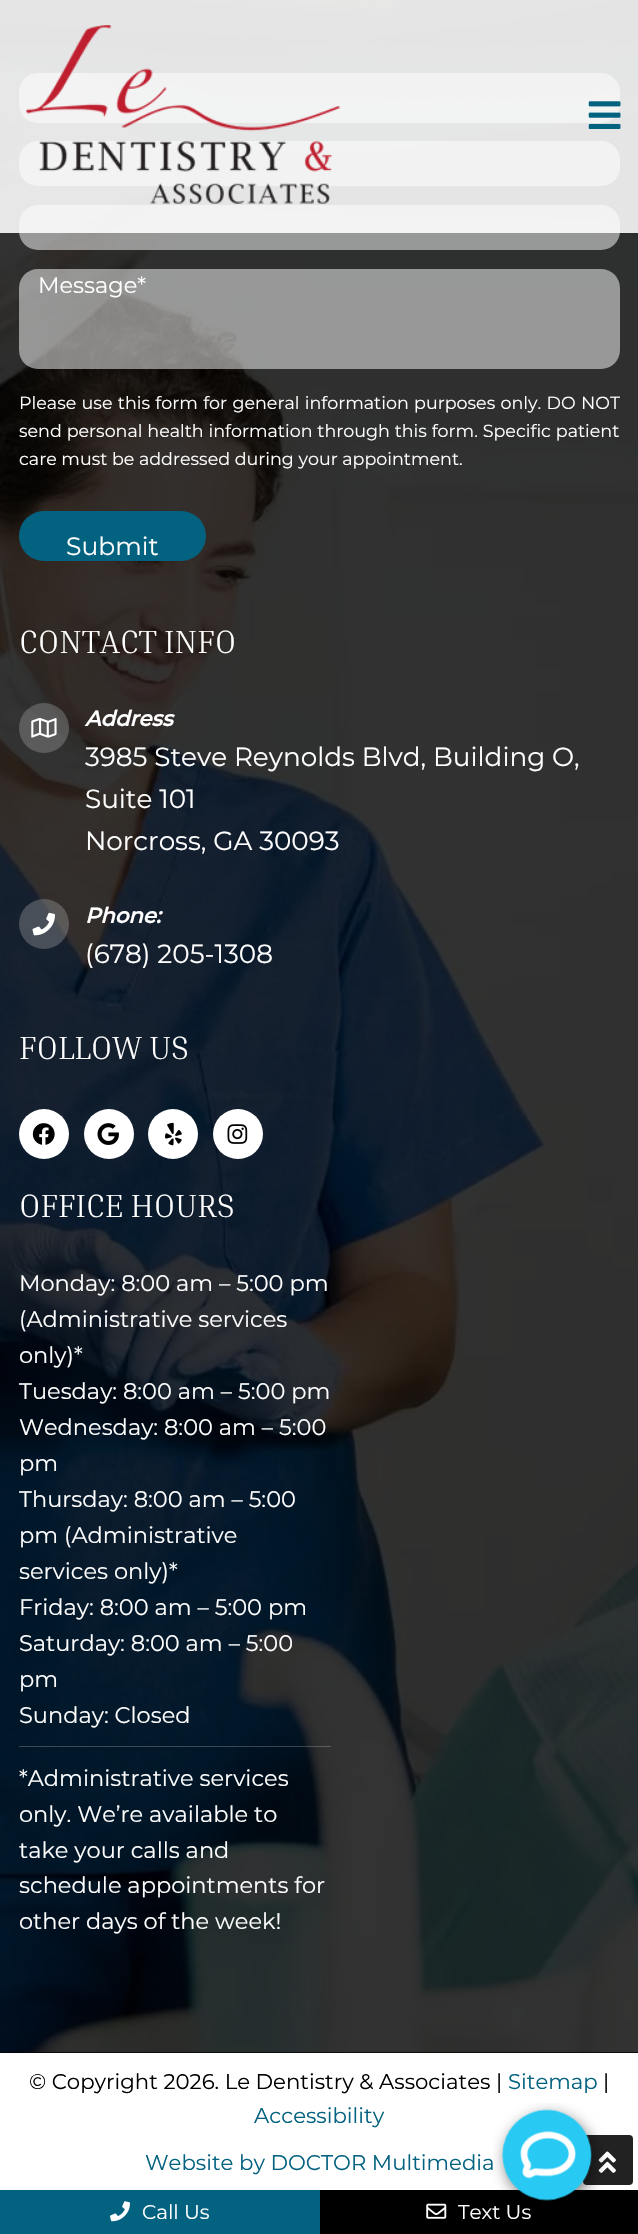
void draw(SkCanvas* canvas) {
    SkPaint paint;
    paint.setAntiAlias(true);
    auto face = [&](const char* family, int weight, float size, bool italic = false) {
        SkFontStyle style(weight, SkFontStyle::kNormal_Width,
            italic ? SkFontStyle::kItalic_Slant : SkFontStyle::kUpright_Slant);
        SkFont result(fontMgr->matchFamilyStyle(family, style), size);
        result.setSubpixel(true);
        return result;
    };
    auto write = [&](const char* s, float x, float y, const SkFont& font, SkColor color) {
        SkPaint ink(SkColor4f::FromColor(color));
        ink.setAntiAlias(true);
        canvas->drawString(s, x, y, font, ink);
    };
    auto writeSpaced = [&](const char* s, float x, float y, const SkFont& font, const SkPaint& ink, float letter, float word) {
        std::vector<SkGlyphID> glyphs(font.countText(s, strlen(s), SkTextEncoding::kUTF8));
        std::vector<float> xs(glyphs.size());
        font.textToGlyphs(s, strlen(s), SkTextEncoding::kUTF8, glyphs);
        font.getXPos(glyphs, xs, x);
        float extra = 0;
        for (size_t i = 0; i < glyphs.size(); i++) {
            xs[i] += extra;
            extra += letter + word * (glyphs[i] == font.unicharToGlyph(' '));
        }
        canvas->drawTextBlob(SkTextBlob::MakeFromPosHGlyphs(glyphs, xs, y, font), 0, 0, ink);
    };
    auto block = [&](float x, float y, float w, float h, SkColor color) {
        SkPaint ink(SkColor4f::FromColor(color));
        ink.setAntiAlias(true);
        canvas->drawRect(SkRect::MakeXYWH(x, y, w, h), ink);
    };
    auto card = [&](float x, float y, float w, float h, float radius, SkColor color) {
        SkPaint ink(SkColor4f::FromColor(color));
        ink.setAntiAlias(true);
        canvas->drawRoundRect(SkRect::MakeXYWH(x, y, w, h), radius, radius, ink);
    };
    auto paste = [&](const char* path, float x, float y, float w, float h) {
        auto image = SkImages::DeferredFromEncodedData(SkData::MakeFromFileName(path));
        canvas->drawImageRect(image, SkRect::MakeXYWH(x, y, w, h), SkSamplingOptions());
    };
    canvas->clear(SK_ColorWHITE);
    block(0, 0, 638, 2053, SK_ColorBLACK);
    paste("pic3.png", 0, 0, 638, 2053);
    card(19, 73, 601, 50, 19, SkColorSetARGB(128, 255, 255, 255));
    card(19, 141, 601, 45, 19, SkColorSetARGB(128, 255, 255, 255));
    card(19, 205, 601, 45, 19, SkColorSetARGB(128, 255, 255, 255));
    block(0, 0, 638, 233, SkColorSetARGB(224, 255, 255, 255));
    paste("pic1.png", 26, 25, 315, 179);
    paste("pic2.png", 588, 101, 33, 28);
    card(19, 269, 601, 100, 19, SkColorSetARGB(128, 255, 255, 255));
    auto kFont1 = face("Montserrat", 400, 22.5f);
    write("Message*", 38, 293, kFont1, SK_ColorWHITE);
    auto kFont2 = face("Montserrat", 400, 17.5f);
    paint.setColor(SK_ColorWHITE);
    writeSpaced("Please use this form for general information purposes only. DO NOT", 19, 409, kFont2, paint, 0, 0.75f);
    writeSpaced("send personal health information through this form. Specific patient", 19, 437, kFont2, paint, 0, 0.25f);
    write("care must be addressed during your appointment.", 19, 465, kFont2, SK_ColorWHITE);
    card(19, 511, 187, 50, 25, SkColorSetRGB(3, 98, 128));
    auto kFont3 = face("Montserrat", 400, 25);
    write("Submit", 66, 555, kFont3, SK_ColorWHITE);
    auto kFont4 = face("Inria Serif", 300, 32.5f);
    write("CONTACT INFO", 19, 653, kFont4, SK_ColorWHITE);
    paint.setColor(SkColorSetARGB(87, 171, 171, 171));
    canvas->drawCircle(44, 728, 25, paint);
    paste("pic4.png", 31, 718, 26, 20);
    auto kFont5 = face("Montserrat", 700, 21.25f, true);
    write("Address", 85, 726, kFont5, SK_ColorWHITE);
    auto kFont6 = face("Montserrat", 400, 26.25f);
    write("3985 Steve Reynolds Blvd, Building O,", 85, 766, kFont6, SK_ColorWHITE);
    write("Suite 101", 85, 808, kFont6, SK_ColorWHITE);
    write("Norcross, GA 30093", 85, 850, kFont6, SK_ColorWHITE);
    canvas->drawCircle(44, 924, 25, paint);
    paste("pic5.png", 32, 912, 23, 24);
    write("Phone:", 85, 923, kFont5, SK_ColorWHITE);
    write("(678) 205-1308", 85, 963, kFont6, SK_ColorWHITE);
    write("FOLLOW US", 19, 1059, kFont4, SK_ColorWHITE);
    paint.setColor(SK_ColorWHITE);
    canvas->drawCircle(44, 1134, 25, paint);
    paste("pic6.png", 32, 1123, 23, 22);
    canvas->drawCircle(109, 1134, 25, paint);
    paste("pic7.png", 97, 1123, 22, 22);
    canvas->drawCircle(173, 1134, 25, paint);
    paste("pic8.png", 165, 1122, 17, 24);
    canvas->drawCircle(238, 1134, 25, paint);
    paste("pic9.png", 227, 1124, 21, 20);
    write("OFFICE HOURS", 19, 1217, kFont4, SK_ColorWHITE);
    block(19, 1746, 312, 1, SkColorSetARGB(54, 255, 255, 255));
    write("Monday: 8:00 am – 5:00 pm", 19, 1291, kFont1, SK_ColorWHITE);
    write("(Administrative services", 19, 1327, kFont1, SK_ColorWHITE);
    write("only)*", 19, 1363, kFont1, SK_ColorWHITE);
    write("Tuesday: 8:00 am – 5:00 pm", 19, 1399, kFont1, SK_ColorWHITE);
    write("Wednesday: 8:00 am – 5:00", 19, 1435, kFont1, SK_ColorWHITE);
    write("pm", 19, 1471, kFont1, SK_ColorWHITE);
    write("Thursday: 8:00 am – 5:00", 19, 1507, kFont1, SK_ColorWHITE);
    write("pm (Administrative", 19, 1543, kFont1, SK_ColorWHITE);
    write("services only)*", 19, 1579, kFont1, SK_ColorWHITE);
    write("Friday: 8:00 am – 5:00 pm", 19, 1615, kFont1, SK_ColorWHITE);
    write("Saturday: 8:00 am – 5:00", 19, 1651, kFont1, SK_ColorWHITE);
    write("pm", 19, 1687, kFont1, SK_ColorWHITE);
    write("Sunday: Closed", 19, 1723, kFont1, SK_ColorWHITE);
    write("*Administrative services", 19, 1786, kFont1, SK_ColorWHITE);
    write("only. We’re available to", 19, 1822, kFont1, SK_ColorWHITE);
    write("take your calls and", 19, 1858, kFont1, SK_ColorWHITE);
    write("schedule appointments for", 19, 1893, kFont1, SK_ColorWHITE);
    write("other days of the week!", 19, 1929, kFont1, SK_ColorWHITE);
    auto kFont7 = face("Montserrat", 400, 21.25f);
    write("© Copyright 2026. Le Dentistry & Associates |", 29, 2089, kFont7, SK_ColorBLACK);
    write("Sitemap", 508, 2089, kFont7, SkColorSetRGB(3, 98, 128));
    write("|", 603, 2089, kFont7, SK_ColorBLACK);
    write("Accessibility", 254, 2123, kFont7, SkColorSetRGB(3, 98, 128));
    write("Website by DOCTOR Multimedia", 145, 2170, kFont7, SkColorSetRGB(3, 98, 128));
    card(583, 2135, 50, 50, 4, SkColorSetRGB(34, 34, 34));
    paste("pic11.png", 598, 2151, 18, 22);
    block(320, 2190, 318, 44, SK_ColorBLACK);
    auto kFont8 = face("Montserrat", 400, 20);
    write("Text Us", 458, 2219, kFont8, SK_ColorWHITE);
    paste("pic10.png", 493, 2103, 112, 108);
    block(0, 2190, 320, 44, SkColorSetRGB(3, 98, 128));
    paste("pic12.png", 110, 2201, 20, 21);
    write("Call Us", 142, 2219, kFont8, SK_ColorWHITE);
    paste("pic13.png", 426, 2203, 21, 16);
}
